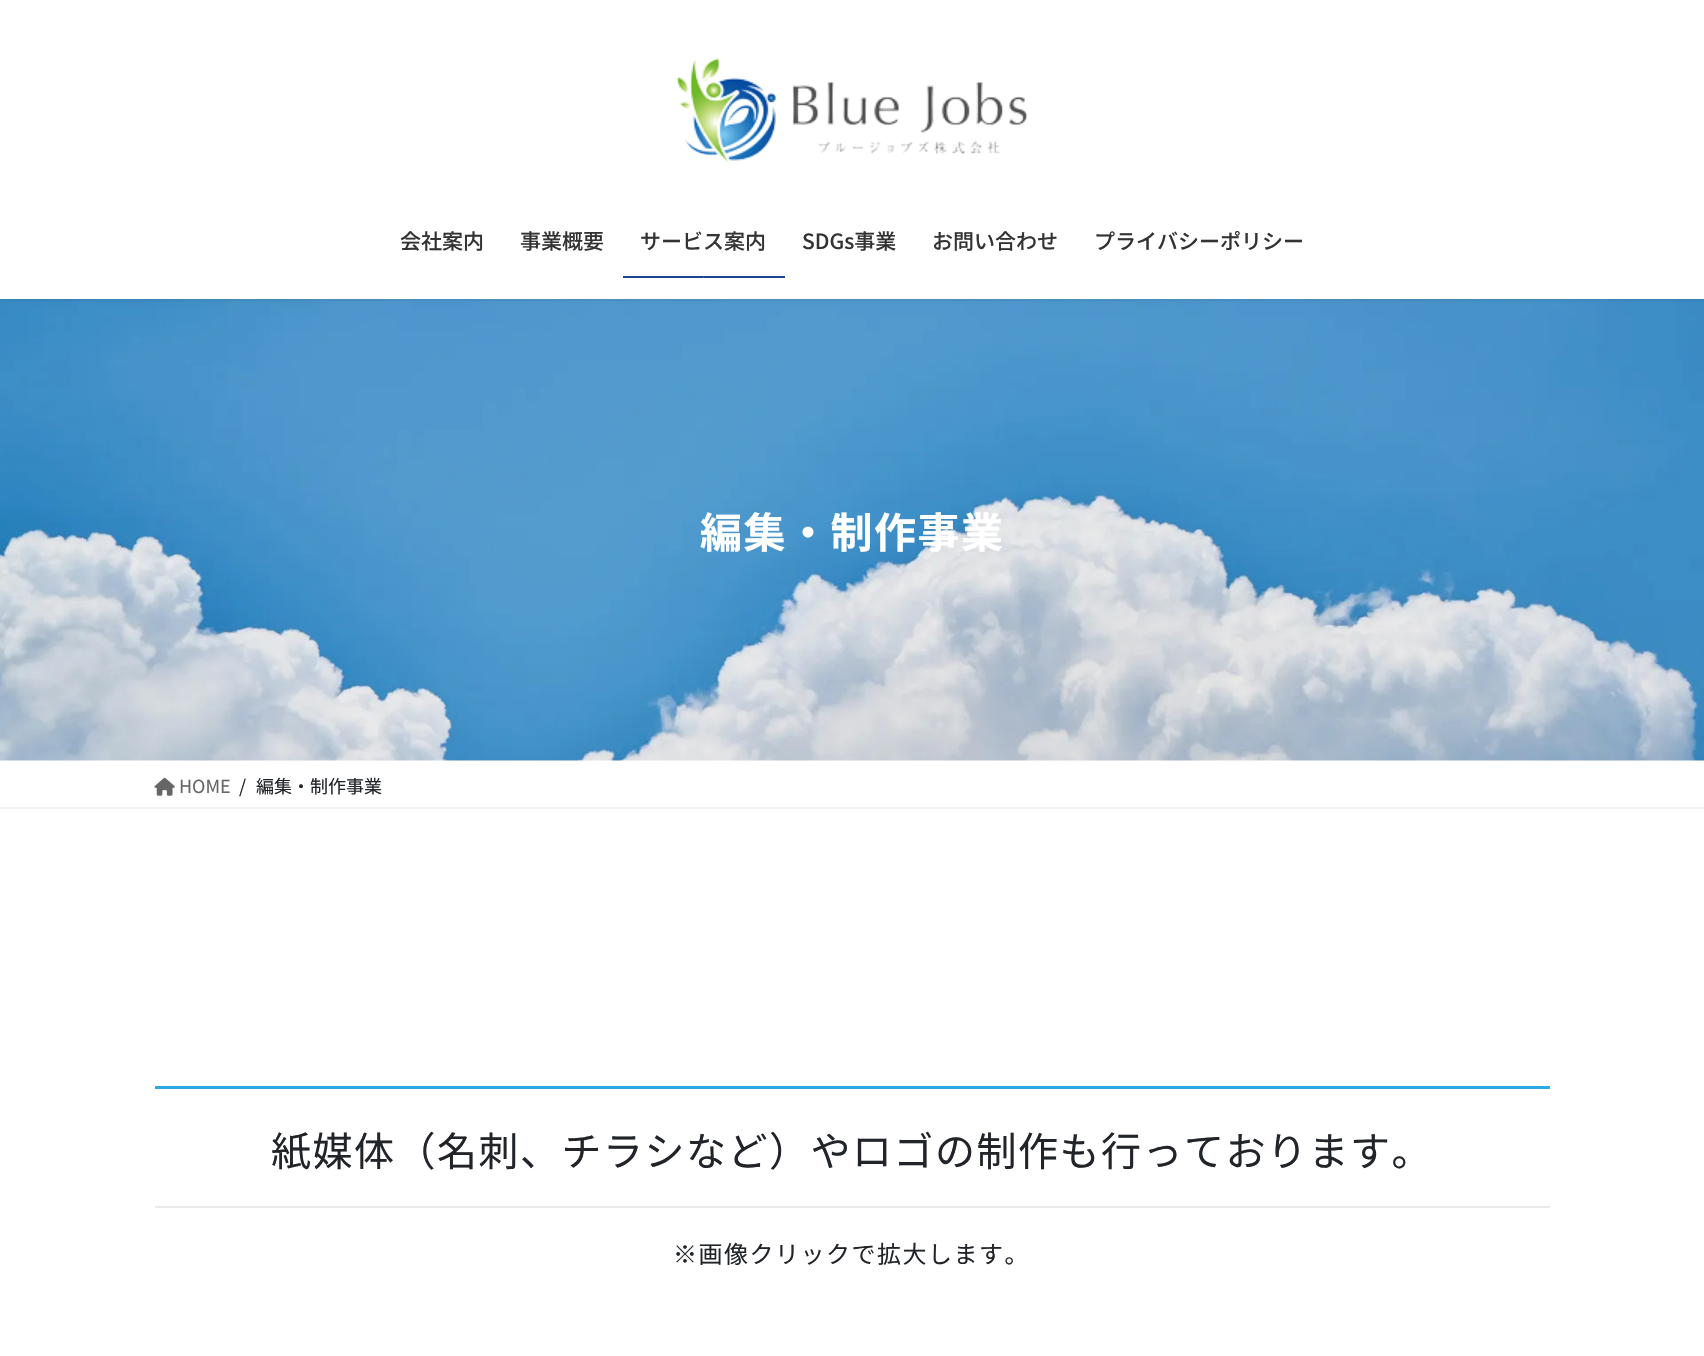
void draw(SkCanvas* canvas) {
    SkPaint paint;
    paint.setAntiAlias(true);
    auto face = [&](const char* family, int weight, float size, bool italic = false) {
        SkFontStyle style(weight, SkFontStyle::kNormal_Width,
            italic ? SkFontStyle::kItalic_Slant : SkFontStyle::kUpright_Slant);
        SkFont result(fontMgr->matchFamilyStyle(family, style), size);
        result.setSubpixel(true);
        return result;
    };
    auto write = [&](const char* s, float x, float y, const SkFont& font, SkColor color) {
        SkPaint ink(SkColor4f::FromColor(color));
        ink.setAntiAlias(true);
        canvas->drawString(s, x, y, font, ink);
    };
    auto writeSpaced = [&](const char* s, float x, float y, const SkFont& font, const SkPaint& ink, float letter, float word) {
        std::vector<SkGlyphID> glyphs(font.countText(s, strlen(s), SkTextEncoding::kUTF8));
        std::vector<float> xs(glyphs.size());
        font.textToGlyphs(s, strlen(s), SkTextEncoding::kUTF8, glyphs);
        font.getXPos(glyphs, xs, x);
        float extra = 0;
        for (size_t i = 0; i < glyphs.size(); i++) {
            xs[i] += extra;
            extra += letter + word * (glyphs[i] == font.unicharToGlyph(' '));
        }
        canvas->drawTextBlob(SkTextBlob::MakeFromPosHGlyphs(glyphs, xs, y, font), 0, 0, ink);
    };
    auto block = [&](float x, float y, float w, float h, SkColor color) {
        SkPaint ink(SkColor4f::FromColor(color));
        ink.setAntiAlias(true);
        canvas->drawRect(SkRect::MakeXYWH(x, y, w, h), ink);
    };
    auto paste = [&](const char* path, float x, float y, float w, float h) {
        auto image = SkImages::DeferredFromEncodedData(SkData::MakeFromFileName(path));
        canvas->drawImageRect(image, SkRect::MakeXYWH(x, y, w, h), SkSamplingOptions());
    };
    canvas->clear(SK_ColorWHITE);
    paste("pic2.png", 0, 299, 1704, 462);
    paint.setColor(SkColorSetARGB(26, 0, 0, 0));
    paint.setMaskFilter(SkMaskFilter::MakeBlur(kNormal_SkBlurStyle, 2));
    canvas->drawRect(SkRect::MakeXYWH(0, 2, 1704, 298), paint);
    paint.setMaskFilter(nullptr);
    block(0, 0, 1704, 299, SK_ColorWHITE);
    paste("pic1.png", 676, 58, 352, 105);
    auto kFont1 = face("Noto Sans JP", 500, 21);
    write("会社案内", 400, 249, kFont1, SkColorSetRGB(51, 51, 51));
    write("事業概要", 520, 249, kFont1, SkColorSetRGB(51, 51, 51));
    write("サービス案内", 640, 249, kFont1, SkColorSetRGB(51, 51, 51));
    block(623, 276, 162, 2, SkColorSetRGB(25, 68, 142));
    paint.setColor(SK_ColorWHITE);
    canvas->drawPath(SkPathBuilder().moveTo(718.5f, 292.5f).lineTo(688.5f, 292.5f).lineTo(703.5f, 277.5f).close().detach(), paint);
    write("SDGs事業", 802, 249, kFont1, SkColorSetRGB(51, 51, 51));
    write("お問い合わせ", 932, 249, kFont1, SkColorSetRGB(51, 51, 51));
    write("プライバシーポリシー", 1094, 249, kFont1, SkColorSetRGB(51, 51, 51));
    auto kFont2 = face("Noto Sans JP", 700, 42);
    writeSpaced("編集・制作事業", 700, 548, kFont2, paint, 1.5f, 0);
    block(0, 807, 1704, 2, SkColorSetRGB(242, 242, 242));
    paste("pic3.png", 154, 777, 21, 19);
    auto kFont3 = face("Noto Sans JP", 400, 18);
    write("HOME", 179, 793, kFont3, SkColorSetRGB(102, 102, 102));
    write("/", 239, 793, kFont3, SkColorSetRGB(33, 37, 41));
    write("編集・制作事業", 256, 793, kFont3, SkColorSetRGB(33, 37, 41));
    block(155, 1086, 1395, 3, SkColorSetRGB(44, 169, 225));
    block(155, 1206, 1395, 2, SkColorSetRGB(233, 233, 233));
    auto kFont4 = face("Noto Sans JP", 400, 40);
    paint.setColor(SkColorSetRGB(33, 37, 41));
    writeSpaced("紙媒体（名刺、チラシなど）やロゴの制作も行っております。", 271, 1166, kFont4, paint, 1.5f, 0);
    auto kFont5 = face("Noto Sans JP", 400, 24);
    writeSpaced("※画像クリックで拡大します。", 673, 1263, kFont5, paint, 1.5f, 0);
}
